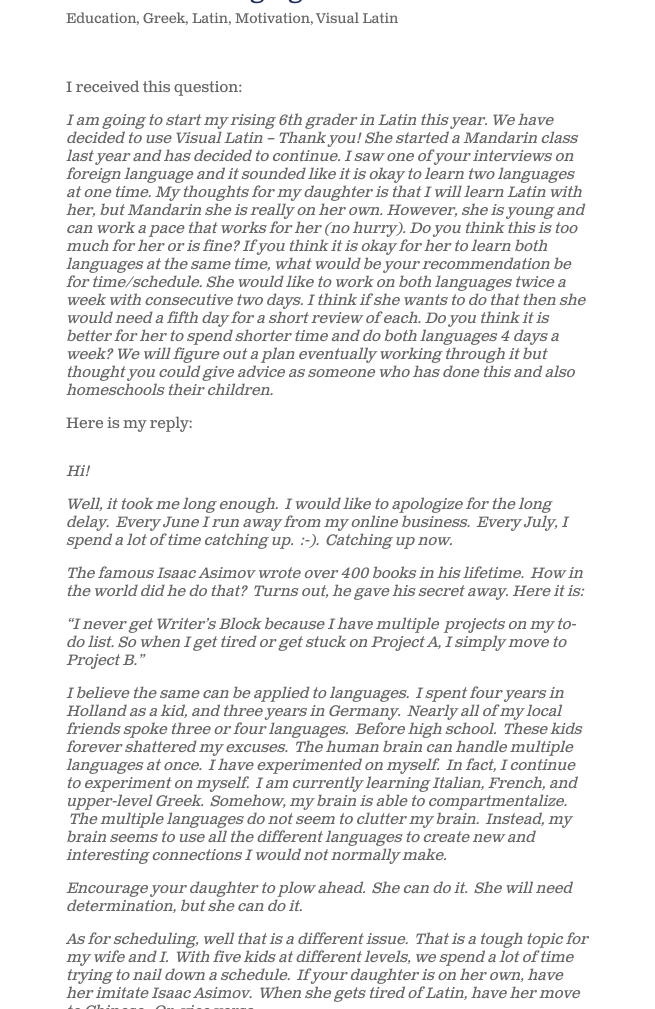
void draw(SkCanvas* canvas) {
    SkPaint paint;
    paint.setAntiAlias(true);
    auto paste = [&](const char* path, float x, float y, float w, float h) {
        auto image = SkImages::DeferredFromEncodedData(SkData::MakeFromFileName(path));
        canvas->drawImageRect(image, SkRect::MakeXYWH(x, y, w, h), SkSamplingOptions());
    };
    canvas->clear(SK_ColorWHITE);
    paste("pic1.png", 250, 0, 52, 4);
    paste("pic2.png", 66, 12, 71, 12);
    paste("pic3.png", 136, 21, 3, 4);
    paste("pic4.png", 143, 12, 43, 12);
    paste("pic5.png", 185, 21, 3, 4);
    paste("pic6.png", 192, 12, 36, 12);
    paste("pic7.png", 228, 21, 3, 4);
    paste("pic8.png", 235, 12, 75, 12);
    paste("pic7.png", 310, 21, 3, 4);
    paste("pic9.png", 315, 12, 84, 12);
    paste("pic10.png", 66, 80, 176, 16);
    paste("pic11.png", 66, 113, 488, 16);
    paste("pic12.png", 67, 131, 512, 16);
    paste("pic13.png", 66, 149, 508, 16);
    paste("pic14.png", 66, 167, 509, 16);
    paste("pic15.png", 67, 185, 515, 16);
    paste("pic16.png", 66, 203, 520, 16);
    paste("pic17.png", 67, 221, 511, 16);
    paste("pic18.png", 66, 239, 482, 16);
    paste("pic19.png", 66, 257, 506, 16);
    paste("pic20.png", 66, 275, 500, 16);
    paste("pic21.png", 67, 293, 519, 16);
    paste("pic22.png", 67, 311, 483, 16);
    paste("pic23.png", 67, 329, 492, 16);
    paste("pic24.png", 67, 347, 481, 16);
    paste("pic25.png", 67, 365, 508, 16);
    paste("pic26.png", 66, 383, 207, 13);
    paste("pic27.png", 66, 416, 126, 16);
    paste("pic28.png", 66, 464, 25, 13);
    paste("pic29.png", 68, 497, 485, 16);
    paste("pic30.png", 67, 515, 503, 16);
    paste("pic31.png", 66, 533, 386, 16);
    paste("pic32.png", 68, 566, 515, 13);
    paste("pic33.png", 67, 584, 518, 16);
    paste("pic34.png", 68, 617, 509, 16);
    paste("pic35.png", 67, 635, 500, 16);
    paste("pic36.png", 66, 653, 80, 16);
    paste("pic37.png", 66, 686, 498, 16);
    paste("pic38.png", 66, 704, 497, 16);
    paste("pic39.png", 66, 722, 517, 16);
    paste("pic40.png", 66, 740, 508, 16);
    paste("pic41.png", 66, 758, 510, 16);
    paste("pic42.png", 67, 776, 511, 16);
    paste("pic43.png", 67, 794, 500, 16);
    paste("pic44.png", 70, 812, 504, 16);
    paste("pic45.png", 67, 830, 469, 16);
    paste("pic46.png", 66, 848, 381, 16);
    paste("pic47.png", 66, 881, 507, 16);
    paste("pic48.png", 67, 899, 235, 14);
    paste("pic49.png", 65, 932, 525, 16);
    paste("pic50.png", 66, 950, 508, 16);
    paste("pic51.png", 67, 968, 497, 16);
    paste("pic52.png", 66, 986, 515, 16);
    paste("pic53.png", 68, 1004, 186, 5);
}
